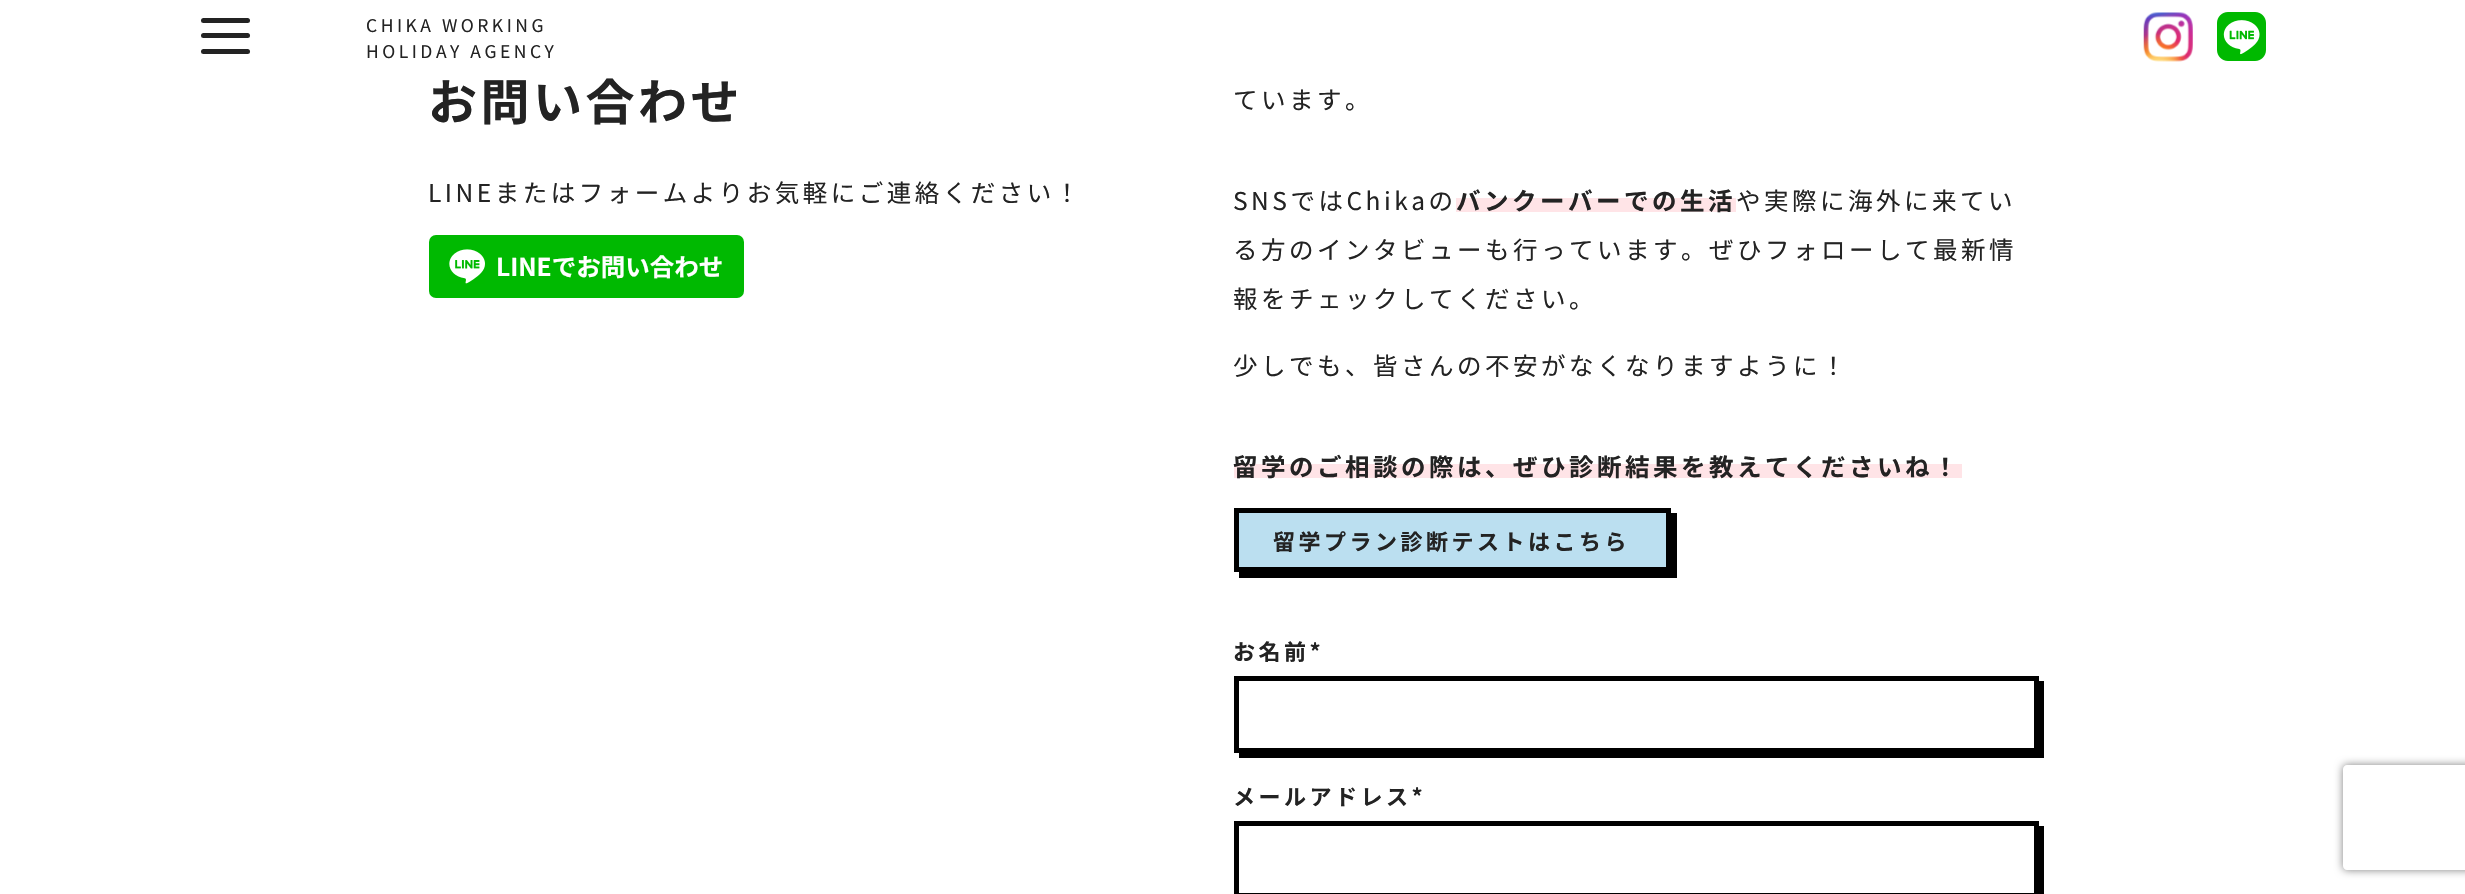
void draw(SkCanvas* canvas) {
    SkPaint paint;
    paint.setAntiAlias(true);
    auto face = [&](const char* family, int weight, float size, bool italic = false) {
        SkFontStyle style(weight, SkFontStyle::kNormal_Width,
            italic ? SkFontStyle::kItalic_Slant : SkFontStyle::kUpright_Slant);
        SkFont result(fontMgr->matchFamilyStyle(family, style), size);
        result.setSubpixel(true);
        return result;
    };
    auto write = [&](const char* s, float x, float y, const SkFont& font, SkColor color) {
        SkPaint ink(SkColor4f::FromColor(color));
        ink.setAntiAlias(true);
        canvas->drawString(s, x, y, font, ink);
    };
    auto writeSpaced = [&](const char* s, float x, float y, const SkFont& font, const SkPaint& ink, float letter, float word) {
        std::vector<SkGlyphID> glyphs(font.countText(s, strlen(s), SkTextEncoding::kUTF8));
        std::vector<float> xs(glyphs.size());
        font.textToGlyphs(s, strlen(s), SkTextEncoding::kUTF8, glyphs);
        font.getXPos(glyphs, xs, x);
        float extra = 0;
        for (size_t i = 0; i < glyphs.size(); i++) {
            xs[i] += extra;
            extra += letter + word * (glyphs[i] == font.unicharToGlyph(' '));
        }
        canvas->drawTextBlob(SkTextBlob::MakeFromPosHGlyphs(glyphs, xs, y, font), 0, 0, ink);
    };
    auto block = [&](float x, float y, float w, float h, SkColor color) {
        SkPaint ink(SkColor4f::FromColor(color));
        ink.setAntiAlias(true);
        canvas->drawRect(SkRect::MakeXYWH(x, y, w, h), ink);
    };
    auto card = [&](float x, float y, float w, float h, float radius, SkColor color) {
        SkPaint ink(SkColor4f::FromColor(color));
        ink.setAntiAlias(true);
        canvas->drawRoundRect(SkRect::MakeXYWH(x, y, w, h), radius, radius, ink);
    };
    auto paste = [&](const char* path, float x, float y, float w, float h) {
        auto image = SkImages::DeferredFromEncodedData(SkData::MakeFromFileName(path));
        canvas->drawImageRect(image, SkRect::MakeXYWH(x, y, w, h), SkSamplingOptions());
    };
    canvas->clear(SK_ColorWHITE);
    card(201, 18, 49, 5, 2.5f, SkColorSetRGB(35, 35, 35));
    card(201, 33, 49, 5, 2.5f, SkColorSetRGB(35, 35, 35));
    card(201, 49, 49, 5, 2.5f, SkColorSetRGB(35, 35, 35));
    auto kFont1 = face("Noto Sans JP", 400, 17.5f);
    paint.setColor(SkColorSetRGB(35, 35, 35));
    writeSpaced("CHIKA WORKING", 366, 32, kFont1, paint, 3.5f, 0);
    writeSpaced("HOLIDAY AGENCY", 366, 58, kFont1, paint, 3.5f, 0);
    paste("pic1.png", 2143, 12, 50, 50);
    paste("pic2.png", 2217, 12, 49, 49);
    auto kFont2 = face("Noto Sans JP", 700, 49);
    writeSpaced("お問い合わせ", 428, 120, kFont2, paint, 3.5f, 0);
    auto kFont3 = face("Noto Sans JP", 400, 24.5f);
    writeSpaced("LINEまたはフォームよりお気軽にご連絡ください！", 428, 202, kFont3, paint, 3.5f, 0);
    card(429, 235, 315, 63, 7, SkColorSetRGB(0, 185, 1));
    paste("pic3.png", 449, 249, 36, 35);
    auto kFont4 = face("Noto Sans JP", 700, 24.5f);
    write("LINEでお問い合わせ", 496, 276, kFont4, SK_ColorWHITE);
    writeSpaced("ています。", 1233, 109, kFont3, paint, 3.5f, 0);
    writeSpaced("SNSではChikaの", 1233, 210, kFont3, paint, 3.5f, 0);
    block(1456, 198, 280, 14, SkColorSetRGB(255, 228, 231));
    writeSpaced("バンクーバーでの生活", 1456, 210, kFont4, paint, 3.5f, 0);
    writeSpaced("や実際に海外に来てい", 1736, 210, kFont3, paint, 3.5f, 0);
    writeSpaced("る方のインタビューも行っています。ぜひフォローして最新情", 1233, 259, kFont3, paint, 3.5f, 0);
    writeSpaced("報をチェックしてください。", 1233, 308, kFont3, paint, 3.5f, 0);
    writeSpaced("少しでも、皆さんの不安がなくなりますように！", 1233, 375, kFont3, paint, 3.5f, 0);
    block(1234, 464, 728, 14, SkColorSetRGB(255, 228, 231));
    writeSpaced("留学のご相談の際は、ぜひ診断結果を教えてくださいね！", 1233, 476, kFont4, paint, 3.5f, 0);
    paint.setColor(SK_ColorBLACK);
    canvas->drawPath(SkPathBuilder().moveTo(1239, 572).lineTo(1239, 578).lineTo(1677, 578).lineTo(1677, 513).lineTo(1671, 513).lineTo(1671, 572).close().detach(), paint);
    paint.setColor(SkColorSetRGB(187, 223, 240));
    canvas->drawRect(SkRect::MakeXYWH(1236.5f, 510.5f, 432, 59), paint);
    paint.setStyle(SkPaint::kStroke_Style);
    paint.setStrokeWidth(5);
    paint.setColor(SK_ColorBLACK);
    canvas->drawRect(SkRect::MakeXYWH(1236.5f, 510.5f, 432, 59), paint);
    auto kFont5 = face("Noto Sans JP", 700, 22);
    paint.setStyle(SkPaint::kFill_Style);
    paint.setColor(SkColorSetRGB(35, 35, 35));
    writeSpaced("留学プラン診断テストはこちら", 1273, 550, kFont5, paint, 3.5f, 0);
    writeSpaced("お名前*", 1233, 660, kFont5, paint, 3.5f, 0);
    paint.setColor(SK_ColorBLACK);
    canvas->drawPath(SkPathBuilder().moveTo(1239, 752).lineTo(1239, 758).lineTo(2044, 758).lineTo(2044, 681).lineTo(2039, 681).lineTo(2039, 752).close().detach(), paint);
    paint.setStyle(SkPaint::kStroke_Style);
    canvas->drawRect(SkRect::MakeXYWH(1236.5f, 678.5f, 800, 72), paint);
    paint.setStyle(SkPaint::kFill_Style);
    paint.setColor(SkColorSetRGB(35, 35, 35));
    writeSpaced("メールアドレス*", 1233, 805, kFont5, paint, 3.5f, 0);
    paint.setColor(SK_ColorBLACK);
    canvas->drawPath(SkPathBuilder().moveTo(1239, 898).lineTo(1239, 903).lineTo(2044, 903).lineTo(2044, 826).lineTo(2039, 826).lineTo(2039, 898).close().detach(), paint);
    paint.setStyle(SkPaint::kStroke_Style);
    canvas->drawRect(SkRect::MakeXYWH(1236.5f, 823.5f, 800, 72), paint);
    canvas->save();
    canvas->clipPath(SkPathBuilder(SkPathFillType::kEvenOdd).moveTo(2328, 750).lineTo(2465, 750).lineTo(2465, 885).lineTo(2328, 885).close().moveTo(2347, 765).lineTo(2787, 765).cubicTo(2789, 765, 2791, 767, 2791, 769).lineTo(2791, 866).cubicTo(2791, 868, 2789, 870, 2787, 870).lineTo(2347, 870).cubicTo(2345, 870, 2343, 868, 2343, 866).lineTo(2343, 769).cubicTo(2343, 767, 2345, 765, 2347, 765).close().detach(), true);
    paint.setStyle(SkPaint::kFill_Style);
    paint.setColor(SkColorSetRGB(128, 128, 128));
    paint.setMaskFilter(SkMaskFilter::MakeBlur(kNormal_SkBlurStyle, 4.5f));
    canvas->drawRoundRect(SkRect::MakeXYWH(2343, 765, 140, 105), 4, 4, paint);
    paint.setMaskFilter(nullptr);
    canvas->restore();
}
